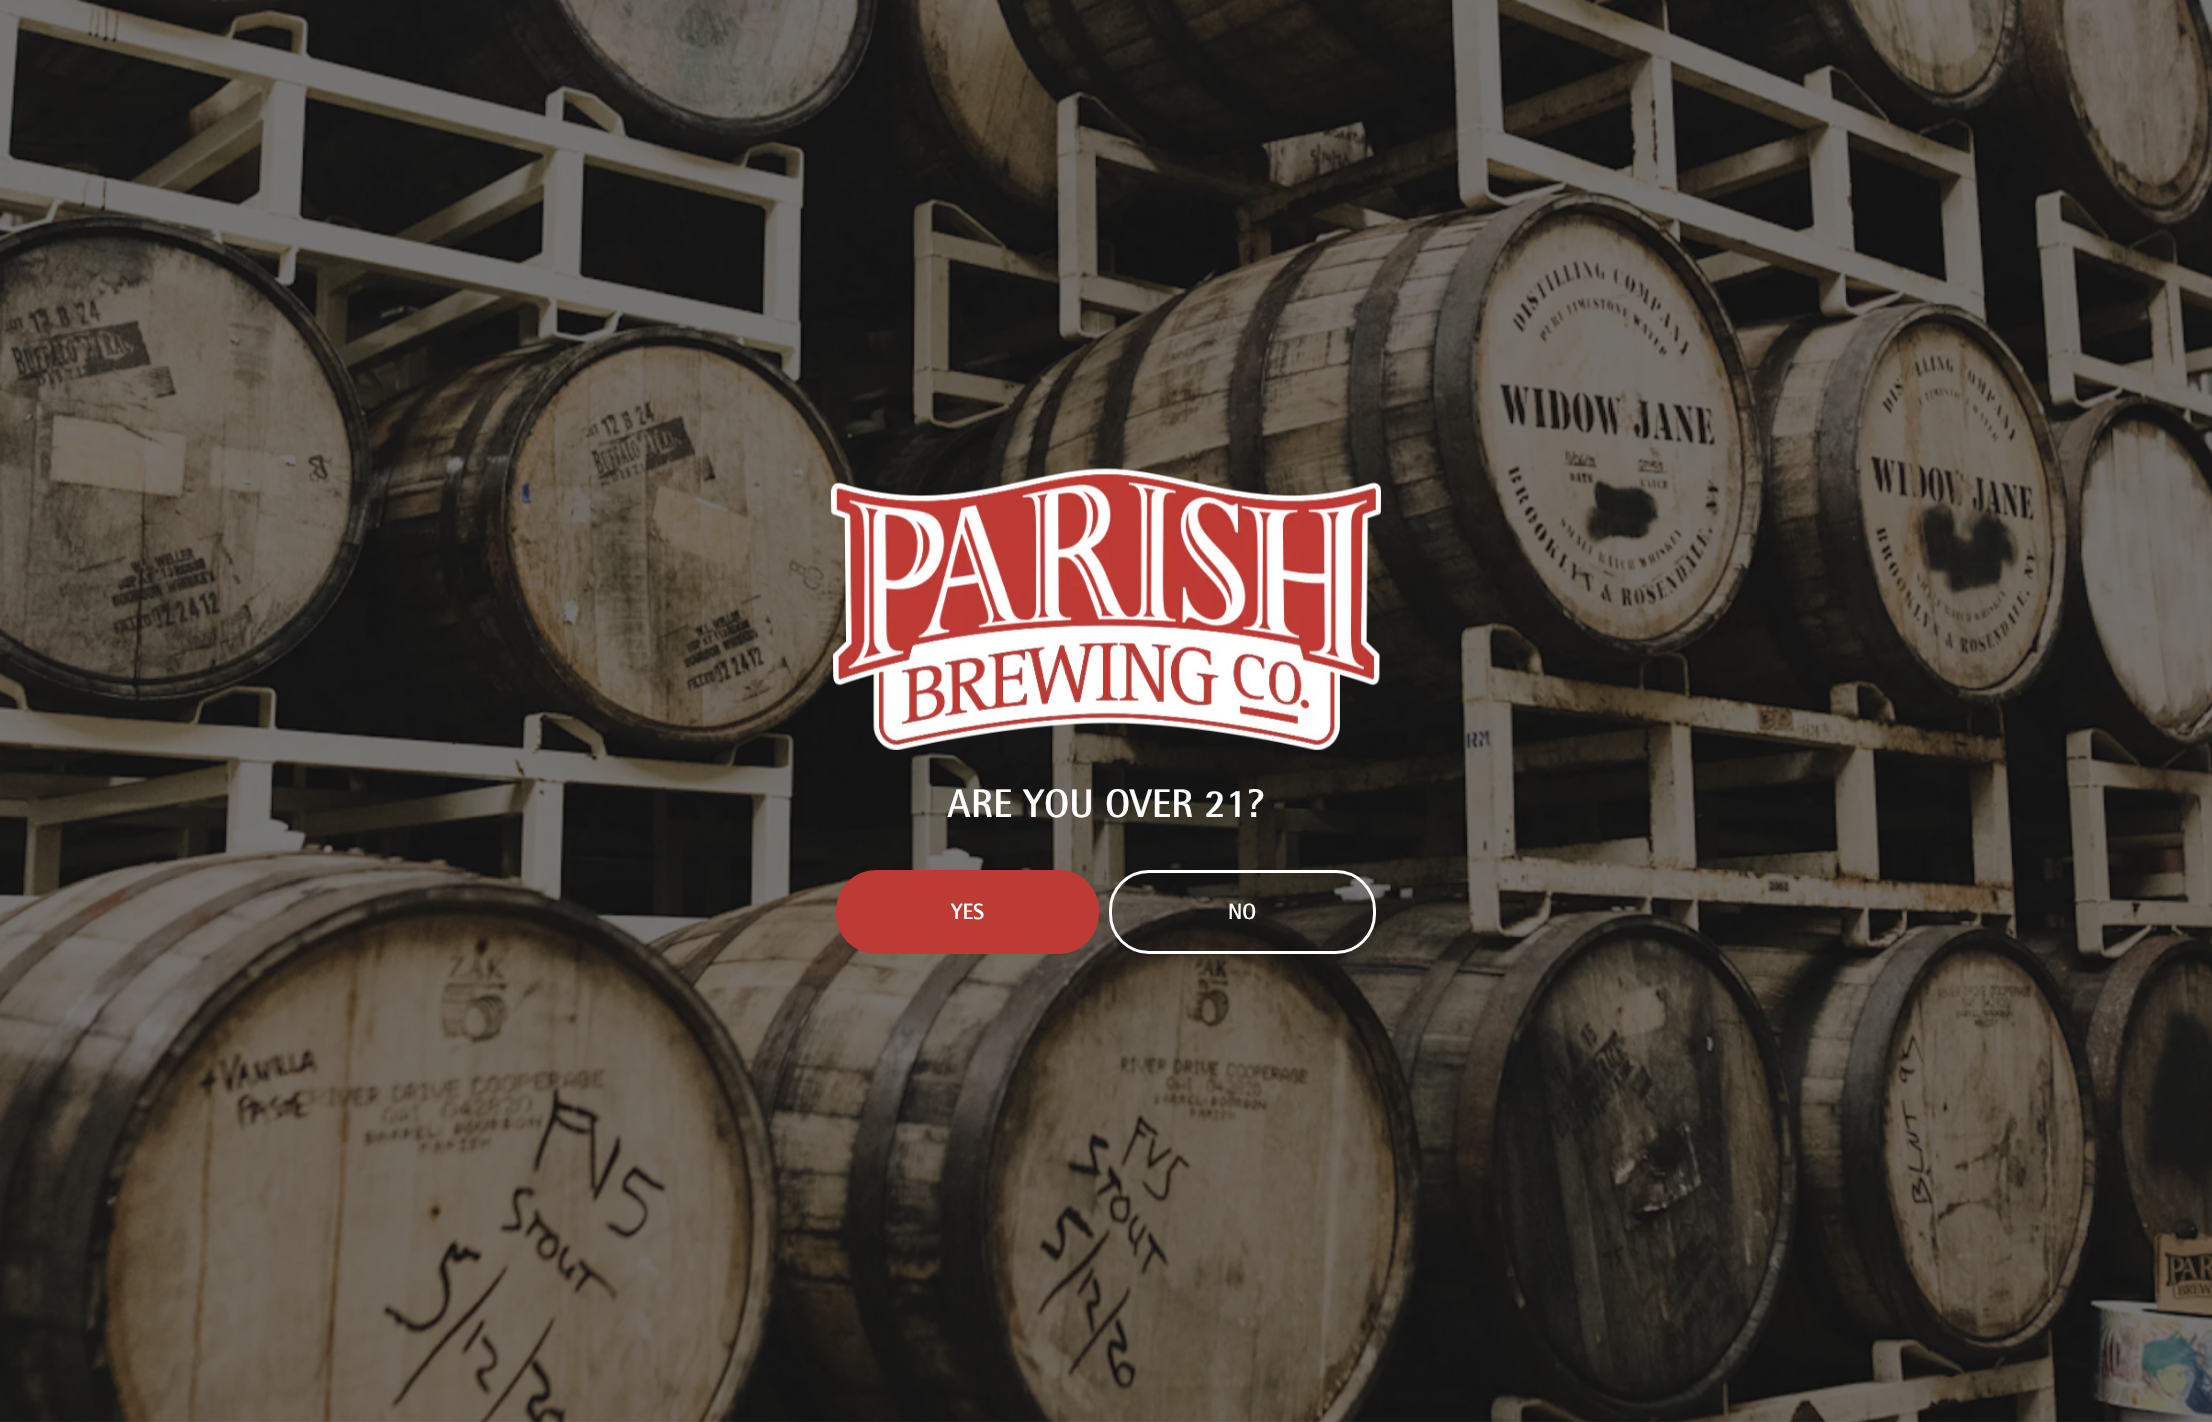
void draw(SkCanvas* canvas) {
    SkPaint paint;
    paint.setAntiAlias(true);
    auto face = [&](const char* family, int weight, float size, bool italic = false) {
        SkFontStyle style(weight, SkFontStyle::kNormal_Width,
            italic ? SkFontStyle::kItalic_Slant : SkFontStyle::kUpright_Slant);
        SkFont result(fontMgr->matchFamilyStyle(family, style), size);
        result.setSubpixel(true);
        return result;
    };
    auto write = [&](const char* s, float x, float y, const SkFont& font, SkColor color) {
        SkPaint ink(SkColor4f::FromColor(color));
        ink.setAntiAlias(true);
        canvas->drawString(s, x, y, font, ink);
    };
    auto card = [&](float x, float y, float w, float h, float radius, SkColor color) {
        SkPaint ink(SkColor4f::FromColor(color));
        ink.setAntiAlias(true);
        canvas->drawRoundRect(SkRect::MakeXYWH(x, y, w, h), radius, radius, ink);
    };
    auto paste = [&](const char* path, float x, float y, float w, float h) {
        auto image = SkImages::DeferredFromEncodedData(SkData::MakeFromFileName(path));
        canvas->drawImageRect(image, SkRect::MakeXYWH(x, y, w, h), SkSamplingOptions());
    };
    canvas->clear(SK_ColorWHITE);
    paste("pic1.png", 0, 0, 2212, 1422);
    paste("pic2.png", 831, 468, 550, 282);
    auto kFont1 = face("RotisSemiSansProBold", 700, 40);
    write("ARE YOU OVER 21?", 947, 817, kFont1, SK_ColorWHITE);
    card(836, 870, 263, 84, 40, SkColorSetRGB(190, 58, 52));
    auto kFont2 = face("RotisSemiSansProBold", 700, 22);
    write("YES", 951, 919, kFont2, SK_ColorWHITE);
    paint.setStyle(SkPaint::kStroke_Style);
    paint.setStrokeWidth(3);
    paint.setColor(SK_ColorWHITE);
    canvas->drawRoundRect(SkRect::MakeXYWH(1110.5f, 871.5f, 264, 81), 38.5f, 38.5f, paint);
    write("NO", 1228, 919, kFont2, SK_ColorWHITE);
}
